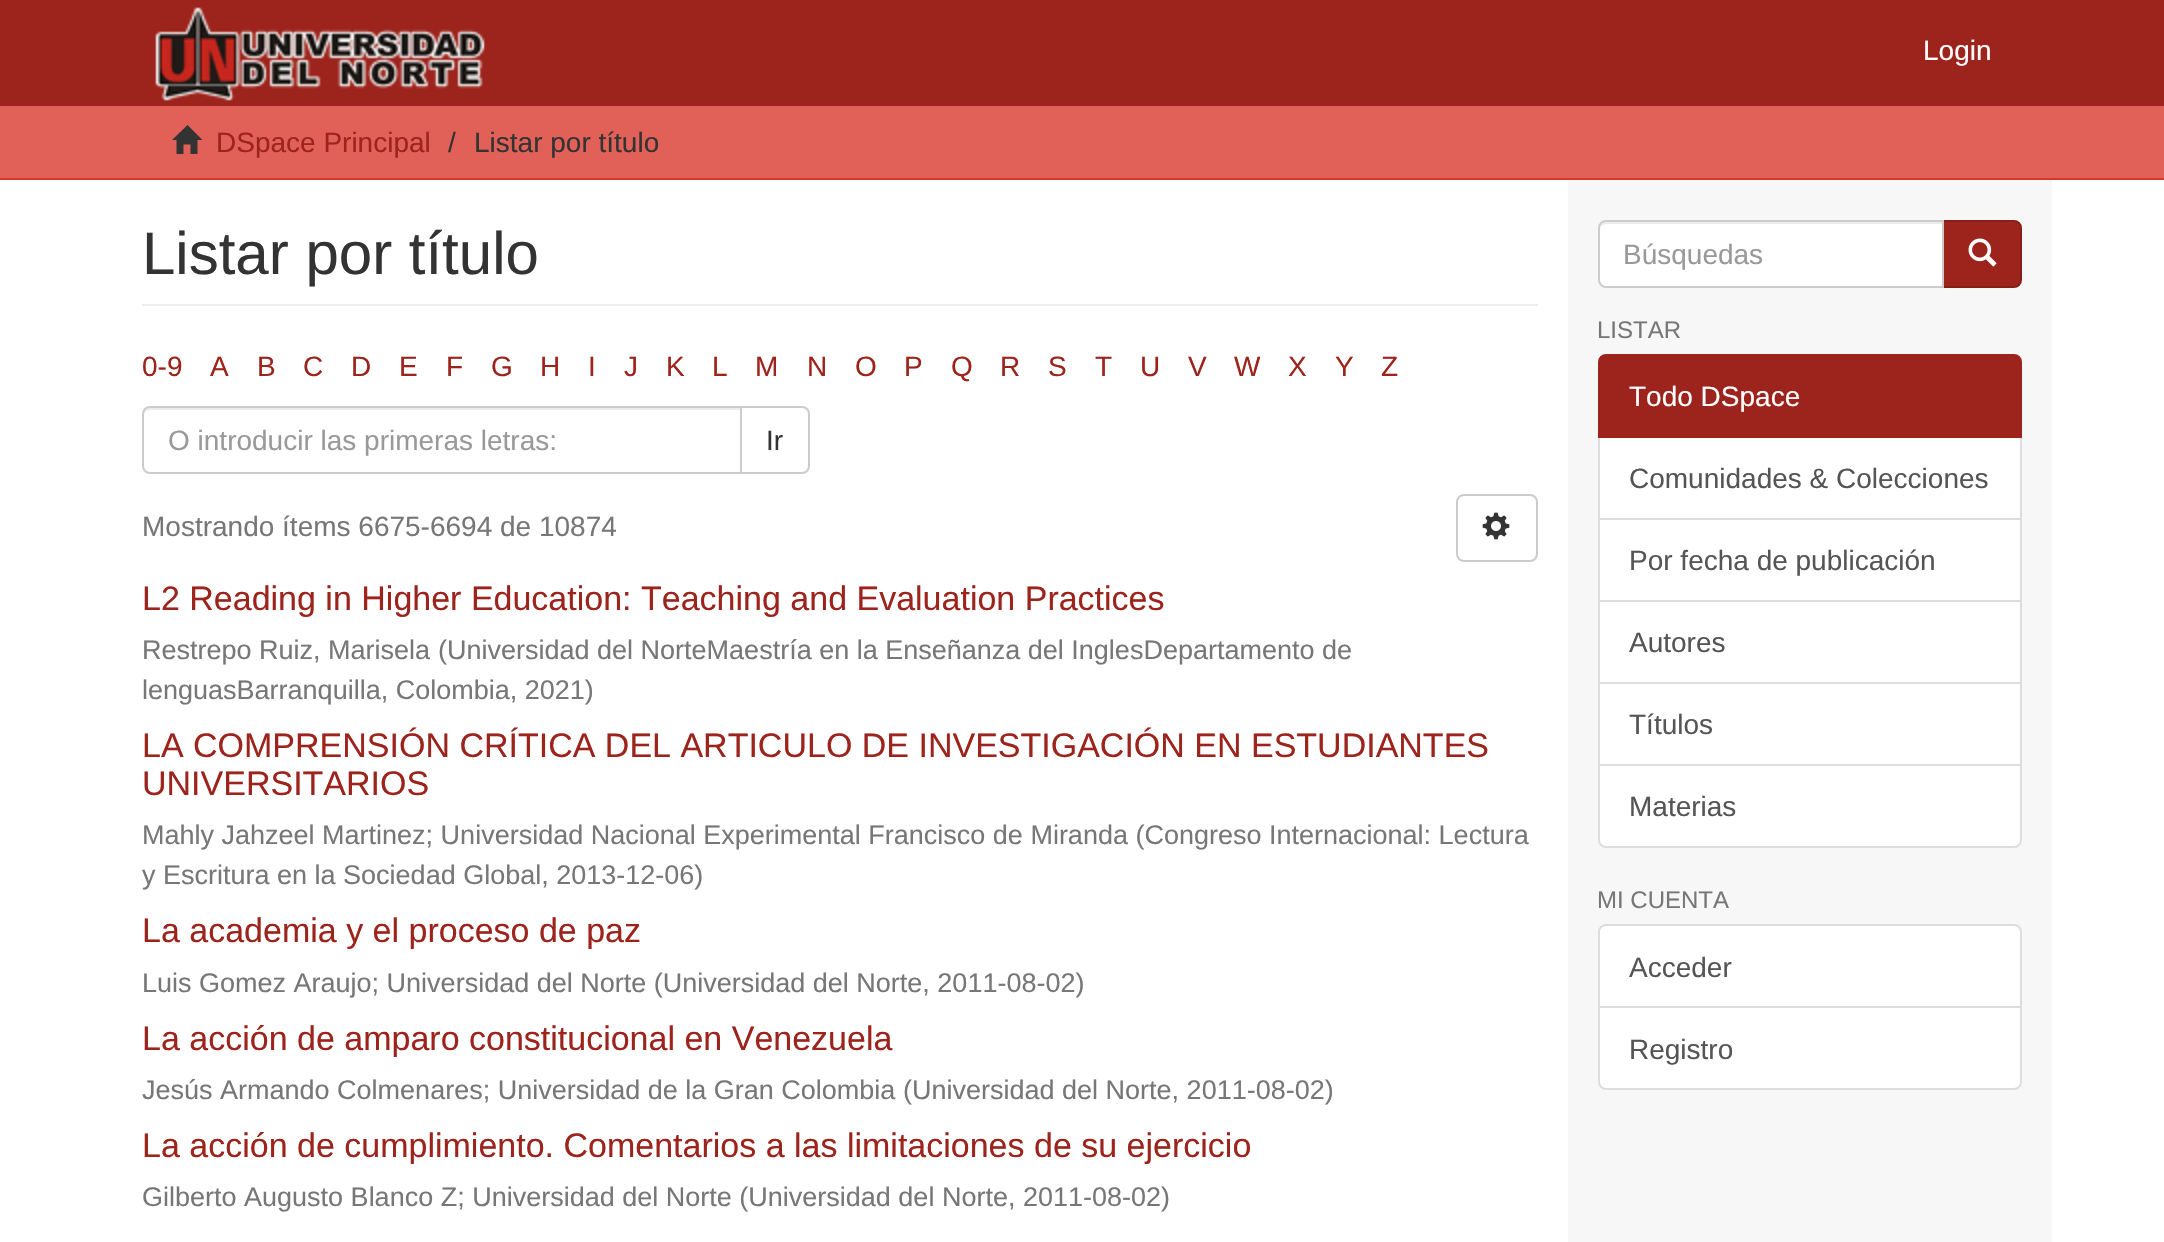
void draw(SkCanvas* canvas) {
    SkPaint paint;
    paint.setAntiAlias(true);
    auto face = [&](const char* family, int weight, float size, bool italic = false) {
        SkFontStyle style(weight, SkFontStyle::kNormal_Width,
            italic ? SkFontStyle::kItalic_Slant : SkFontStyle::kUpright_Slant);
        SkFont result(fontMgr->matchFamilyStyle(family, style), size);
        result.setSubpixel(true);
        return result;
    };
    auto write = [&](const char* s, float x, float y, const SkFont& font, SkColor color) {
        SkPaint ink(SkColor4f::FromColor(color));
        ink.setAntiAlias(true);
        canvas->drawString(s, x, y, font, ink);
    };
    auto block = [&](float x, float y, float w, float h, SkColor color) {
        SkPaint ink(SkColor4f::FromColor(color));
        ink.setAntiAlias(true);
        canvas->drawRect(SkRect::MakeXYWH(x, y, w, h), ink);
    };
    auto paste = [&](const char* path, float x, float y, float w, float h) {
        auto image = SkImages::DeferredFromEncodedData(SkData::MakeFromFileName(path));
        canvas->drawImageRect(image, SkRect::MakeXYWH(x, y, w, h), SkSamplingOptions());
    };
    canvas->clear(SK_ColorWHITE);
    block(0, 0, 2164, 106, SkColorSetRGB(157, 36, 28));
    paste("pic1.png", 155, 7, 330, 94);
    auto kFont1 = face("Liberation Sans", 400, 28);
    write("Login", 1923, 60, kFont1, SK_ColorWHITE);
    block(0, 106, 2164, 72, SkColorSetRGB(225, 96, 87));
    block(0, 178, 2164, 2, SkColorSetRGB(217, 55, 44));
    paint.setColor(SkColorSetRGB(51, 51, 51));
    canvas->drawPath(SkPathBuilder().moveTo(172, 140).lineTo(187.5f, 125).lineTo(202.5f, 140).lineTo(197.5f, 140).lineTo(197.5f, 154).lineTo(190.5f, 154).lineTo(190.5f, 144.5f).lineTo(183.5f, 144.5f).lineTo(183.5f, 154).lineTo(176.5f, 154).lineTo(176.5f, 140).close().detach(), paint);
    write("DSpace Principal", 216, 152, kFont1, SkColorSetRGB(157, 36, 28));
    write("/", 448, 152, kFont1, SkColorSetRGB(51, 51, 51));
    write("Listar por título", 474, 152, kFont1, SkColorSetRGB(51, 51, 51));
    block(1568, 180, 484, 1062, SkColorSetRGB(247, 247, 247));
    block(142, 304, 1396, 2, SkColorSetRGB(238, 238, 238));
    auto kFont2 = face("Liberation Sans", 400, 60);
    write("Listar por título", 142, 274, kFont2, SkColorSetRGB(51, 51, 51));
    write("0-9", 142, 376, kFont1, SkColorSetRGB(157, 36, 28));
    write("A", 210, 376, kFont1, SkColorSetRGB(157, 36, 28));
    write("B", 257, 376, kFont1, SkColorSetRGB(157, 36, 28));
    write("C", 303, 376, kFont1, SkColorSetRGB(157, 36, 28));
    write("D", 351, 376, kFont1, SkColorSetRGB(157, 36, 28));
    write("E", 399, 376, kFont1, SkColorSetRGB(157, 36, 28));
    write("F", 446, 376, kFont1, SkColorSetRGB(157, 36, 28));
    write("G", 491, 376, kFont1, SkColorSetRGB(157, 36, 28));
    write("H", 540, 376, kFont1, SkColorSetRGB(157, 36, 28));
    write("I", 588, 376, kFont1, SkColorSetRGB(157, 36, 28));
    write("J", 624, 376, kFont1, SkColorSetRGB(157, 36, 28));
    write("K", 666, 376, kFont1, SkColorSetRGB(157, 36, 28));
    write("L", 712, 376, kFont1, SkColorSetRGB(157, 36, 28));
    write("M", 755, 376, kFont1, SkColorSetRGB(157, 36, 28));
    write("N", 807, 376, kFont1, SkColorSetRGB(157, 36, 28));
    write("O", 855, 376, kFont1, SkColorSetRGB(157, 36, 28));
    write("P", 904, 376, kFont1, SkColorSetRGB(157, 36, 28));
    write("Q", 951, 376, kFont1, SkColorSetRGB(157, 36, 28));
    write("R", 1000, 376, kFont1, SkColorSetRGB(157, 36, 28));
    write("S", 1048, 376, kFont1, SkColorSetRGB(157, 36, 28));
    write("T", 1095, 376, kFont1, SkColorSetRGB(157, 36, 28));
    write("U", 1140, 376, kFont1, SkColorSetRGB(157, 36, 28));
    write("V", 1188, 376, kFont1, SkColorSetRGB(157, 36, 28));
    write("W", 1234, 376, kFont1, SkColorSetRGB(157, 36, 28));
    write("X", 1288, 376, kFont1, SkColorSetRGB(157, 36, 28));
    write("Y", 1335, 376, kFont1, SkColorSetRGB(157, 36, 28));
    write("Z", 1381, 376, kFont1, SkColorSetRGB(157, 36, 28));
    paint.setStyle(SkPaint::kStroke_Style);
    paint.setStrokeWidth(2);
    paint.setColor(SkColorSetRGB(204, 204, 204));
    canvas->drawPath(SkPathBuilder().moveTo(741, 407).lineTo(802, 407).cubicTo(806, 407, 809, 410, 809, 414).lineTo(809, 466).cubicTo(809, 470, 806, 473, 802, 473).lineTo(741, 473).close().detach(), paint);
    paint.setStyle(SkPaint::kFill_Style);
    paint.setColor(SK_ColorWHITE);
    canvas->drawPath(SkPathBuilder().moveTo(150, 406).lineTo(742, 406).lineTo(742, 474).lineTo(150, 474).cubicTo(145.5f, 474, 142, 470.5f, 142, 466).lineTo(142, 414).cubicTo(142, 409.5f, 145.5f, 406, 150, 406).close().detach(), paint);
    paint.setColor(SkColorSetRGB(236, 236, 236));
    canvas->drawPath(SkPathBuilder().moveTo(150, 410).lineTo(740, 410).lineTo(740, 408).lineTo(150, 408).cubicTo(145, 408, 144, 412, 144, 416).cubicTo(144, 413, 147, 410, 150, 410).close().detach(), paint);
    paint.setStyle(SkPaint::kStroke_Style);
    paint.setColor(SkColorSetRGB(204, 204, 204));
    canvas->drawPath(SkPathBuilder().moveTo(150, 407).lineTo(741, 407).lineTo(741, 473).lineTo(150, 473).cubicTo(146, 473, 143, 470, 143, 466).lineTo(143, 414).cubicTo(143, 410, 146, 407, 150, 407).close().detach(), paint);
    write("O introducir las primeras letras:", 168, 450, kFont1, SkColorSetRGB(153, 153, 153));
    write("Ir", 766, 450, kFont1, SkColorSetRGB(51, 51, 51));
    write("Mostrando ítems 6675-6694 de 10874", 142, 536, kFont1, SkColorSetRGB(119, 119, 119));
    canvas->drawRoundRect(SkRect::MakeXYWH(1457, 495, 80, 66), 7, 7, paint);
    paste("pic2.png", 1482, 512, 28, 28);
    auto kFont3 = face("Liberation Sans", 400, 34);
    write("L2 Reading in Higher Education: Teaching and Evaluation Practices", 142, 610, kFont3, SkColorSetRGB(157, 36, 28));
    auto kFont4 = face("Liberation Sans", 400, 27);
    write("Restrepo Ruiz, Marisela", 142, 659, kFont4, SkColorSetRGB(119, 119, 119));
    write("(Universidad del NorteMaestría en la Enseñanza del InglesDepartamento de", 438, 659, kFont4, SkColorSetRGB(119, 119, 119));
    write("lenguasBarranquilla, Colombia, 2021)", 142, 699, kFont4, SkColorSetRGB(119, 119, 119));
    write("LA COMPRENSIÓN CRÍTICA DEL ARTICULO DE INVESTIGACIÓN EN ESTUDIANTES", 142, 757, kFont3, SkColorSetRGB(157, 36, 28));
    write("UNIVERSITARIOS", 142, 795, kFont3, SkColorSetRGB(157, 36, 28));
    write("Mahly Jahzeel Martinez; Universidad Nacional Experimental Francisco de Miranda (Congreso Internacional: Lectura", 142, 844, kFont4, SkColorSetRGB(119, 119, 119));
    write("y Escritura en la Sociedad Global, 2013-12-06)", 142, 884, kFont4, SkColorSetRGB(119, 119, 119));
    write("La academia y el proceso de paz", 142, 942, kFont3, SkColorSetRGB(157, 36, 28));
    write("Luis Gomez Araujo; Universidad del Norte (Universidad del Norte, 2011-08-02)", 142, 992, kFont4, SkColorSetRGB(119, 119, 119));
    write("La acción de amparo constitucional en Venezuela", 142, 1050, kFont3, SkColorSetRGB(157, 36, 28));
    write("Jesús Armando Colmenares; Universidad de la Gran Colombia", 142, 1099, kFont4, SkColorSetRGB(119, 119, 119));
    write("(Universidad del Norte, 2011-08-02)", 903, 1099, kFont4, SkColorSetRGB(119, 119, 119));
    write("La acción de cumplimiento. Comentarios a las limitaciones de su ejercicio", 142, 1157, kFont3, SkColorSetRGB(157, 36, 28));
    write("Gilberto Augusto Blanco Z; Universidad del Norte (Universidad del Norte, 2011-08-02)", 142, 1206, kFont4, SkColorSetRGB(119, 119, 119));
    paint.setStyle(SkPaint::kFill_Style);
    paint.setColor(SkColorSetRGB(157, 36, 28));
    canvas->drawPath(SkPathBuilder().moveTo(1943, 221).lineTo(2014, 221).cubicTo(2018, 221, 2021, 224, 2021, 228).lineTo(2021, 280).cubicTo(2021, 284, 2018, 287, 2014, 287).lineTo(1943, 287).close().detach(), paint);
    paint.setStyle(SkPaint::kStroke_Style);
    paint.setColor(SkColorSetRGB(135, 31, 24));
    canvas->drawPath(SkPathBuilder().moveTo(1943, 221).lineTo(2014, 221).cubicTo(2018, 221, 2021, 224, 2021, 228).lineTo(2021, 280).cubicTo(2021, 284, 2018, 287, 2014, 287).lineTo(1943, 287).close().detach(), paint);
    paint.setStyle(SkPaint::kFill_Style);
    paint.setColor(SK_ColorWHITE);
    canvas->drawPath(SkPathBuilder().moveTo(1606, 220).lineTo(1944, 220).lineTo(1944, 288).lineTo(1606, 288).cubicTo(1601.5f, 288, 1598, 284.5f, 1598, 280).lineTo(1598, 228).cubicTo(1598, 223.5f, 1601.5f, 220, 1606, 220).close().detach(), paint);
    paint.setColor(SkColorSetRGB(236, 236, 236));
    canvas->drawPath(SkPathBuilder().moveTo(1606, 224).lineTo(1942, 224).lineTo(1942, 222).lineTo(1605, 222).cubicTo(1601, 223, 1600, 227, 1600, 230).cubicTo(1600, 227, 1603, 224, 1606, 224).close().detach(), paint);
    paint.setStyle(SkPaint::kStroke_Style);
    paint.setColor(SkColorSetRGB(204, 204, 204));
    canvas->drawPath(SkPathBuilder().moveTo(1606, 221).lineTo(1943, 221).lineTo(1943, 287).lineTo(1606, 287).cubicTo(1602, 287, 1599, 284, 1599, 280).lineTo(1599, 228).cubicTo(1599, 224, 1602, 221, 1606, 221).close().detach(), paint);
    write("Búsquedas", 1623, 264, kFont1, SkColorSetRGB(153, 153, 153));
    paste("pic3.png", 1968, 238, 29, 29);
    auto kFont5 = face("Liberation Sans", 400, 24);
    write("LISTAR", 1597, 338, kFont5, SkColorSetRGB(119, 119, 119));
    paint.setStyle(SkPaint::kFill_Style);
    paint.setColor(SK_ColorWHITE);
    canvas->drawRect(SkRect::MakeXYWH(1599, 437, 422, 82), paint);
    paint.setStyle(SkPaint::kStroke_Style);
    paint.setColor(SkColorSetRGB(221, 221, 221));
    canvas->drawRect(SkRect::MakeXYWH(1599, 437, 422, 82), paint);
    paint.setStyle(SkPaint::kFill_Style);
    paint.setColor(SkColorSetRGB(157, 36, 28));
    canvas->drawPath(SkPathBuilder().moveTo(1606, 355).lineTo(2014, 355).cubicTo(2018, 355, 2021, 358, 2021, 362).lineTo(2021, 437).lineTo(1599, 437).lineTo(1599, 362).cubicTo(1599, 358, 1602, 355, 1606, 355).close().detach(), paint);
    paint.setStyle(SkPaint::kStroke_Style);
    canvas->drawPath(SkPathBuilder().moveTo(1606, 355).lineTo(2014, 355).cubicTo(2018, 355, 2021, 358, 2021, 362).lineTo(2021, 437).lineTo(1599, 437).lineTo(1599, 362).cubicTo(1599, 358, 1602, 355, 1606, 355).close().detach(), paint);
    write("Todo DSpace", 1629, 406, kFont1, SK_ColorWHITE);
    write("Comunidades & Colecciones", 1629, 488, kFont1, SkColorSetRGB(85, 85, 85));
    paint.setStyle(SkPaint::kFill_Style);
    paint.setColor(SK_ColorWHITE);
    canvas->drawRect(SkRect::MakeXYWH(1599, 519, 422, 82), paint);
    paint.setStyle(SkPaint::kStroke_Style);
    paint.setColor(SkColorSetRGB(221, 221, 221));
    canvas->drawRect(SkRect::MakeXYWH(1599, 519, 422, 82), paint);
    write("Por fecha de publicación", 1629, 570, kFont1, SkColorSetRGB(85, 85, 85));
    paint.setStyle(SkPaint::kFill_Style);
    paint.setColor(SK_ColorWHITE);
    canvas->drawRect(SkRect::MakeXYWH(1599, 601, 422, 82), paint);
    paint.setStyle(SkPaint::kStroke_Style);
    paint.setColor(SkColorSetRGB(221, 221, 221));
    canvas->drawRect(SkRect::MakeXYWH(1599, 601, 422, 82), paint);
    write("Autores", 1629, 652, kFont1, SkColorSetRGB(85, 85, 85));
    paint.setStyle(SkPaint::kFill_Style);
    paint.setColor(SK_ColorWHITE);
    canvas->drawRect(SkRect::MakeXYWH(1599, 683, 422, 82), paint);
    paint.setStyle(SkPaint::kStroke_Style);
    paint.setColor(SkColorSetRGB(221, 221, 221));
    canvas->drawRect(SkRect::MakeXYWH(1599, 683, 422, 82), paint);
    write("Títulos", 1629, 734, kFont1, SkColorSetRGB(85, 85, 85));
    paint.setStyle(SkPaint::kFill_Style);
    paint.setColor(SK_ColorWHITE);
    canvas->drawPath(SkPathBuilder().moveTo(1599, 765).lineTo(2021, 765).lineTo(2021, 840).cubicTo(2021, 844, 2018, 847, 2014, 847).lineTo(1606, 847).cubicTo(1602, 847, 1599, 844, 1599, 840).close().detach(), paint);
    paint.setStyle(SkPaint::kStroke_Style);
    paint.setColor(SkColorSetRGB(221, 221, 221));
    canvas->drawPath(SkPathBuilder().moveTo(1599, 765).lineTo(2021, 765).lineTo(2021, 840).cubicTo(2021, 844, 2018, 847, 2014, 847).lineTo(1606, 847).cubicTo(1602, 847, 1599, 844, 1599, 840).close().detach(), paint);
    write("Materias", 1629, 816, kFont1, SkColorSetRGB(85, 85, 85));
    write("MI CUENTA", 1597, 908, kFont5, SkColorSetRGB(119, 119, 119));
    paint.setStyle(SkPaint::kFill_Style);
    paint.setColor(SK_ColorWHITE);
    canvas->drawPath(SkPathBuilder().moveTo(1606, 925).lineTo(2014, 925).cubicTo(2018, 925, 2021, 928, 2021, 932).lineTo(2021, 1007).lineTo(1599, 1007).lineTo(1599, 932).cubicTo(1599, 928, 1602, 925, 1606, 925).close().detach(), paint);
    paint.setStyle(SkPaint::kStroke_Style);
    paint.setColor(SkColorSetRGB(221, 221, 221));
    canvas->drawPath(SkPathBuilder().moveTo(1606, 925).lineTo(2014, 925).cubicTo(2018, 925, 2021, 928, 2021, 932).lineTo(2021, 1007).lineTo(1599, 1007).lineTo(1599, 932).cubicTo(1599, 928, 1602, 925, 1606, 925).close().detach(), paint);
    write("Acceder", 1629, 977, kFont1, SkColorSetRGB(85, 85, 85));
    paint.setStyle(SkPaint::kFill_Style);
    paint.setColor(SK_ColorWHITE);
    canvas->drawPath(SkPathBuilder().moveTo(1599, 1007).lineTo(2021, 1007).lineTo(2021, 1082).cubicTo(2021, 1086, 2018, 1089, 2014, 1089).lineTo(1606, 1089).cubicTo(1602, 1089, 1599, 1086, 1599, 1082).close().detach(), paint);
    paint.setStyle(SkPaint::kStroke_Style);
    paint.setColor(SkColorSetRGB(221, 221, 221));
    canvas->drawPath(SkPathBuilder().moveTo(1599, 1007).lineTo(2021, 1007).lineTo(2021, 1082).cubicTo(2021, 1086, 2018, 1089, 2014, 1089).lineTo(1606, 1089).cubicTo(1602, 1089, 1599, 1086, 1599, 1082).close().detach(), paint);
    write("Registro", 1629, 1059, kFont1, SkColorSetRGB(85, 85, 85));
}
